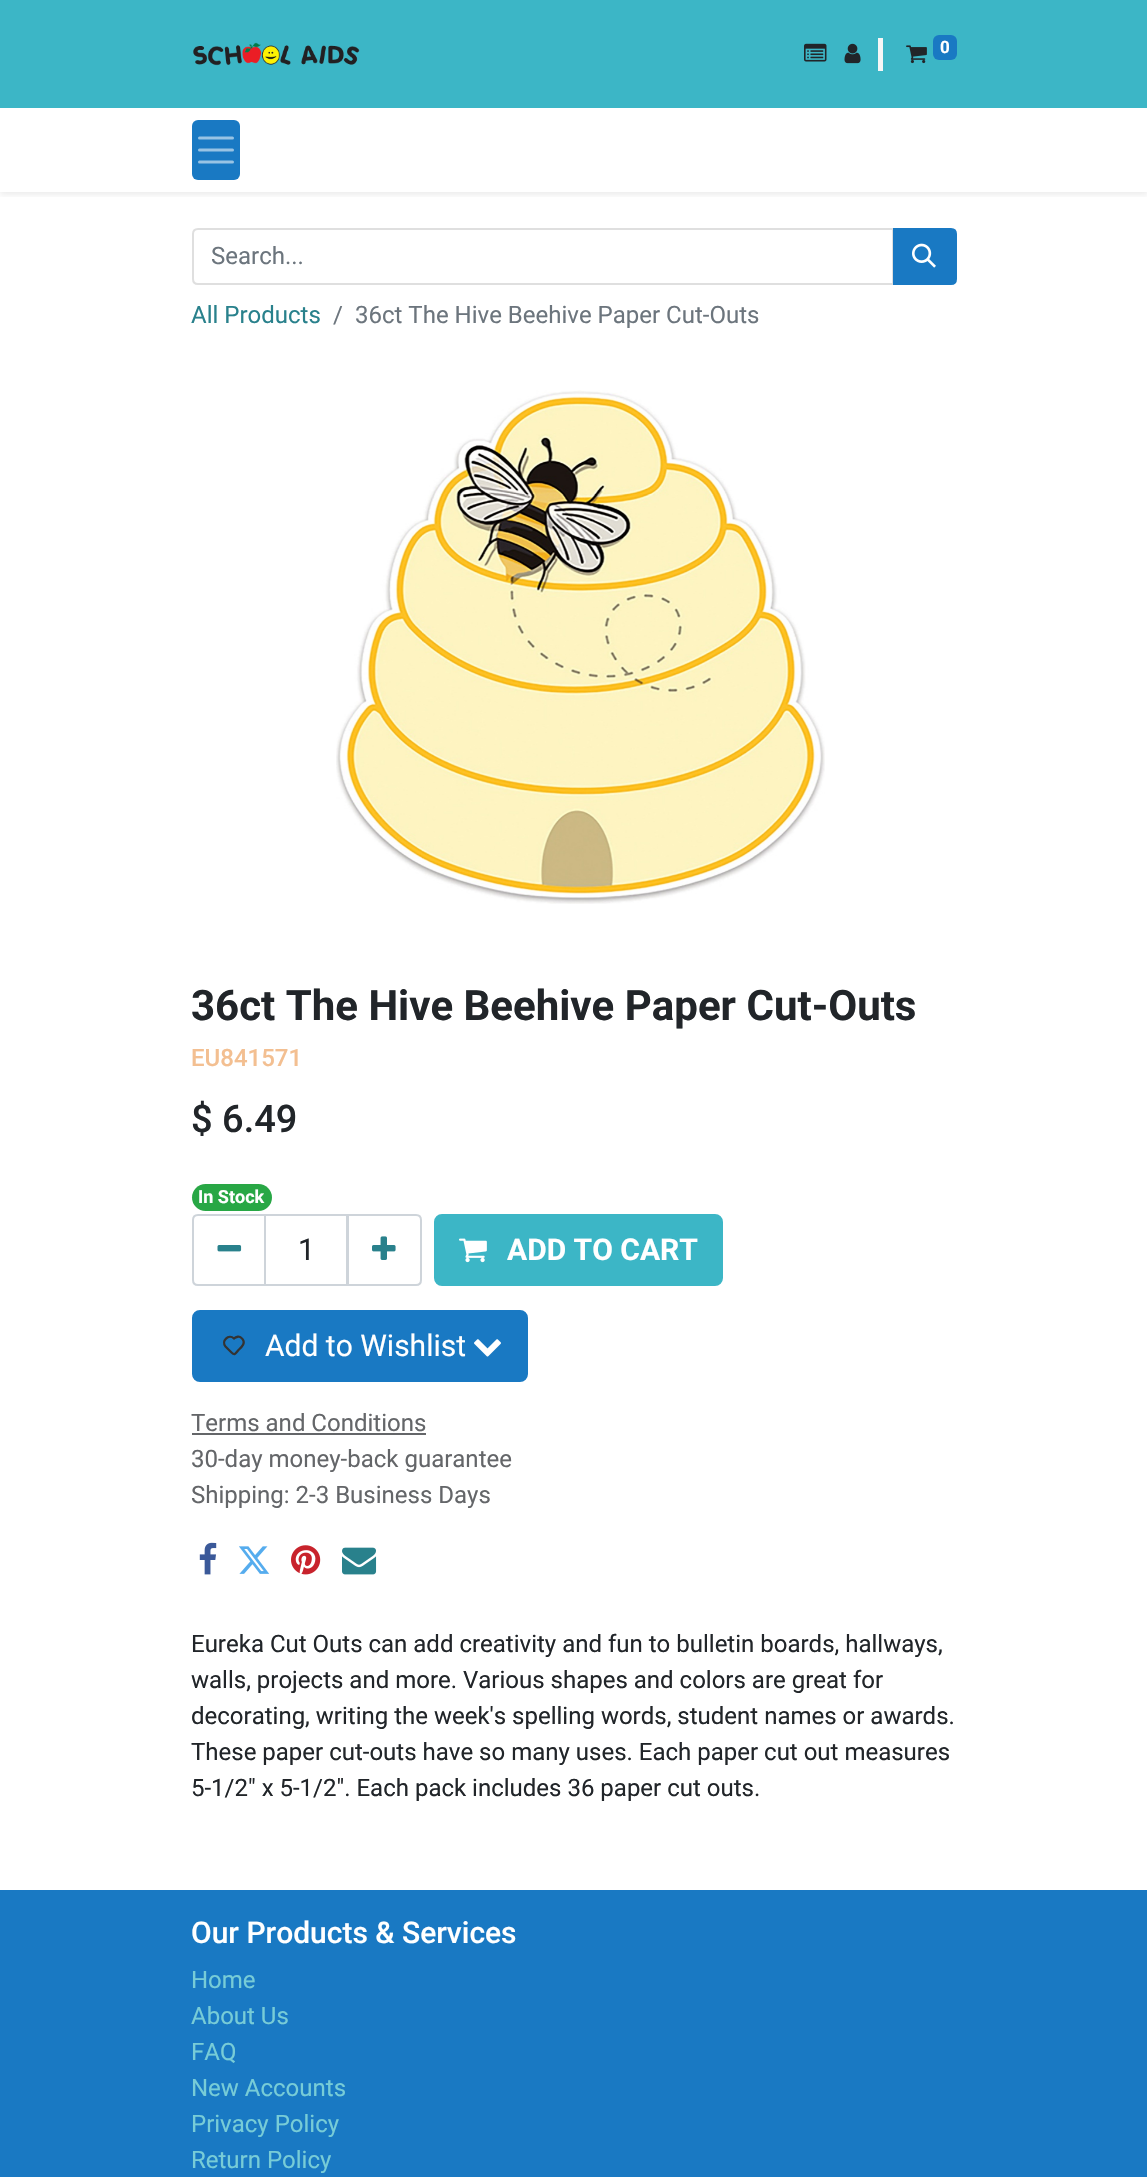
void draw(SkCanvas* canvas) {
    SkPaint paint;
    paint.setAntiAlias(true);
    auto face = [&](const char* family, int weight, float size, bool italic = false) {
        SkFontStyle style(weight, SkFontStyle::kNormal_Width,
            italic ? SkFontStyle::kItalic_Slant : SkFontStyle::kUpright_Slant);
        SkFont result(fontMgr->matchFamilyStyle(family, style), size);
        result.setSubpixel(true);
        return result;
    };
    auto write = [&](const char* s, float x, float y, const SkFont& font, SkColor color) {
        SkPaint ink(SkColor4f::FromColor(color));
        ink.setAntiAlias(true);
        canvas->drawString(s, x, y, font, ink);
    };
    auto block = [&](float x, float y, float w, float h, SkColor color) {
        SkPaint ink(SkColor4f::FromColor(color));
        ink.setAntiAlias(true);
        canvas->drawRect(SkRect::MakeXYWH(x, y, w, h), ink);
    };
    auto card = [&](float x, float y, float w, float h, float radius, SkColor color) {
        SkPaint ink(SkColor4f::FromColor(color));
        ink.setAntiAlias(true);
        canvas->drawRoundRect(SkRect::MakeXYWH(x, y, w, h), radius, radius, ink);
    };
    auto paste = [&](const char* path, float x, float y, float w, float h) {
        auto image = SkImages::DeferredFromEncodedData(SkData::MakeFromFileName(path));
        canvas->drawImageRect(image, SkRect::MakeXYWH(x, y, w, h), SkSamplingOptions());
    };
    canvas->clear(SK_ColorWHITE);
    block(0, 0, 1147, 108, SkColorSetRGB(60, 182, 198));
    paste("pic1.png", 193, 42, 167, 24);
    paste("pic2.png", 804, 43, 23, 19);
    paste("pic3.png", 844, 43, 17, 21);
    block(878, 38, 5, 33, SkColorSetRGB(246, 246, 246));
    paste("pic4.png", 906, 45, 21, 19);
    card(933, 35, 24, 25, 6, SkColorSetRGB(25, 121, 195));
    auto kFont1 = face("Roboto", 700, 17);
    write("0", 940, 53, kFont1, SK_ColorWHITE);
    canvas->save();
    canvas->clipRect(SkRect::MakeXYWH(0, 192, 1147, 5));
    paint.setColor(SkColorSetARGB(18, 0, 0, 0));
    paint.setMaskFilter(SkMaskFilter::MakeBlur(kNormal_SkBlurStyle, 3));
    canvas->drawRect(SkRect::MakeXYWH(0, 111, 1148, 84), paint);
    paint.setMaskFilter(nullptr);
    canvas->restore();
    card(192, 120, 48, 60, 6, SkColorSetRGB(25, 121, 195));
    paint.setStyle(SkPaint::kStroke_Style);
    paint.setStrokeWidth(3);
    paint.setStrokeCap(SkPaint::kRound_Cap);
    paint.setColor(SkColorSetRGB(152, 195, 228));
    canvas->drawPath(SkPathBuilder().moveTo(199.5f, 138).lineTo(232.5f, 138).moveTo(199.5f, 150).lineTo(232.5f, 150).moveTo(199.5f, 162).lineTo(232.5f, 162).detach(), paint);
    paint.setStrokeWidth(2);
    paint.setStrokeCap(SkPaint::kButt_Cap);
    paint.setColor(SkColorSetRGB(223, 223, 223));
    canvas->drawPath(SkPathBuilder().moveTo(198, 229).lineTo(893, 229).lineTo(893, 284).lineTo(198, 284).cubicTo(195, 284, 193, 282, 193, 279).lineTo(193, 234).cubicTo(193, 231, 195, 229, 198, 229).close().detach(), paint);
    auto kFont2 = face("Roboto", 400, 24);
    write("Search...", 211, 264, kFont2, SkColorSetRGB(108, 117, 125));
    paint.setStyle(SkPaint::kFill_Style);
    paint.setColor(SkColorSetRGB(25, 121, 195));
    canvas->drawPath(SkPathBuilder().moveTo(894, 229).lineTo(951, 229).cubicTo(954, 229, 956, 231, 956, 234).lineTo(956, 279).cubicTo(956, 282, 954, 284, 951, 284).lineTo(894, 284).close().detach(), paint);
    paint.setStyle(SkPaint::kStroke_Style);
    canvas->drawPath(SkPathBuilder().moveTo(894, 229).lineTo(951, 229).cubicTo(954, 229, 956, 231, 956, 234).lineTo(956, 279).cubicTo(956, 282, 954, 284, 951, 284).lineTo(894, 284).close().detach(), paint);
    paste("pic5.png", 912, 243, 24, 25);
    write("All Products", 191, 323, kFont2, SkColorSetRGB(41, 129, 140));
    write("/", 333, 323, kFont2, SkColorSetRGB(108, 117, 125));
    write("36ct The Hive Beehive Paper Cut-Outs", 355, 323, kFont2, SkColorSetRGB(108, 117, 125));
    paste("pic6.png", 336, 390, 489, 514);
    auto kFont3 = face("Roboto", 700, 42);
    write("36ct The Hive Beehive Paper Cut-Outs", 191, 1020, kFont3, SkColorSetRGB(33, 37, 41));
    auto kFont4 = face("Roboto", 500, 24);
    write("EU841571", 191, 1066, kFont4, SkColorSetRGB(243, 191, 145));
    auto kFont5 = face("Roboto", 500, 38);
    write("$ 6.49", 191, 1132, kFont5, SkColorSetRGB(33, 37, 41));
    card(192, 1184, 80, 27, 13.5f, SkColorSetRGB(40, 167, 69));
    auto kFont6 = face("Roboto", 700, 18);
    write("In Stock", 198, 1203, kFont6, SK_ColorWHITE);
    paint.setColor(SkColorSetRGB(206, 212, 218));
    canvas->drawRect(SkRect::MakeXYWH(265, 1215, 82, 70), paint);
    canvas->drawPath(SkPathBuilder().moveTo(198, 1215).lineTo(265, 1215).lineTo(265, 1285).lineTo(198, 1285).cubicTo(195, 1285, 193, 1283, 193, 1280).lineTo(193, 1220).cubicTo(193, 1217, 195, 1215, 198, 1215).close().detach(), paint);
    paste("pic7.png", 217, 1245, 25, 7);
    auto kFont7 = face("Roboto", 400, 30);
    write("1", 298, 1260, kFont7, SkColorSetRGB(33, 37, 41));
    canvas->drawPath(SkPathBuilder().moveTo(348, 1215).lineTo(416, 1215).cubicTo(419, 1215, 421, 1217, 421, 1220).lineTo(421, 1280).cubicTo(421, 1283, 419, 1285, 416, 1285).lineTo(348, 1285).close().detach(), paint);
    paste("pic8.png", 372, 1236, 24, 24);
    paint.setStyle(SkPaint::kFill_Style);
    paint.setColor(SkColorSetRGB(60, 182, 198));
    canvas->drawRoundRect(SkRect::MakeXYWH(435, 1215, 287, 70), 7, 7, paint);
    paint.setStyle(SkPaint::kStroke_Style);
    canvas->drawRoundRect(SkRect::MakeXYWH(435, 1215, 287, 70), 7, 7, paint);
    paste("pic9.png", 459, 1238, 28, 25);
    auto kFont8 = face("Roboto", 700, 30);
    write("ADD TO CART", 507, 1260, kFont8, SK_ColorWHITE);
    paint.setStyle(SkPaint::kFill_Style);
    paint.setColor(SkColorSetRGB(25, 121, 195));
    canvas->drawRoundRect(SkRect::MakeXYWH(193, 1311, 334, 70), 7, 7, paint);
    paint.setStyle(SkPaint::kStroke_Style);
    canvas->drawRoundRect(SkRect::MakeXYWH(193, 1311, 334, 70), 7, 7, paint);
    paint.setStrokeWidth(2.3f);
    paint.setColor(SkColorSetRGB(51, 51, 51));
    canvas->drawPath(SkPathBuilder().moveTo(241.5f, 1338).cubicTo(246.5f, 1342.5f, 242, 1347, 238.5f, 1350).cubicTo(235.5f, 1353.5f, 235, 1356, 231.5f, 1352.5f).lineTo(225.5f, 1346.5f).cubicTo(221, 1341, 228.5f, 1333.5f, 234, 1338.5f).cubicTo(236, 1336.5f, 239.5f, 1336, 241.5f, 1338).close().detach(), paint);
    write("Add to Wishlist", 265, 1356, kFont7, SK_ColorWHITE);
    paste("pic10.png", 474, 1339, 27, 18);
    write("Terms and Conditions", 191, 1431, kFont2, SkColorSetRGB(100, 102, 105));
    block(192, 1433, 234, 2, SkColorSetRGB(100, 102, 105));
    write("30-day money-back guarantee", 191, 1467, kFont2, SkColorSetRGB(100, 102, 105));
    write("Shipping: 2-3 Business Days", 191, 1503, kFont2, SkColorSetRGB(100, 102, 105));
    paste("pic11.png", 199, 1542, 18, 33);
    paste("pic12.png", 239, 1546, 31, 28);
    paste("pic13.png", 291, 1545, 30, 30);
    paste("pic14.png", 342, 1547, 35, 28);
    write("Eureka Cut Outs can add creativity and fun to bulletin boards, hallways,", 191, 1652, kFont2, SkColorSetRGB(33, 37, 41));
    write("walls, projects and more. Various shapes and colors are great for", 191, 1688, kFont2, SkColorSetRGB(33, 37, 41));
    write("decorating, writing the week's spelling words, student names or awards.", 191, 1724, kFont2, SkColorSetRGB(33, 37, 41));
    write("These paper cut-outs have so many uses. Each paper cut out measures", 191, 1760, kFont2, SkColorSetRGB(33, 37, 41));
    write("5-1/2\" x 5-1/2\". Each pack includes 36 paper cut outs.", 191, 1796, kFont2, SkColorSetRGB(33, 37, 41));
    block(0, 1890, 1147, 287, SkColorSetRGB(25, 121, 195));
    auto kFont9 = face("Roboto", 500, 30);
    write("Our Products & Services", 191, 1943, kFont9, SK_ColorWHITE);
    write("Home", 191, 1988, kFont2, SkColorSetRGB(119, 204, 215));
    write("About Us", 191, 2024, kFont2, SkColorSetRGB(119, 204, 215));
    write("FAQ", 191, 2060, kFont2, SkColorSetRGB(119, 204, 215));
    write("New Accounts", 191, 2096, kFont2, SkColorSetRGB(119, 204, 215));
    write("Privacy Policy", 191, 2132, kFont2, SkColorSetRGB(119, 204, 215));
    write("Return Policy", 191, 2168, kFont2, SkColorSetRGB(119, 204, 215));
}
